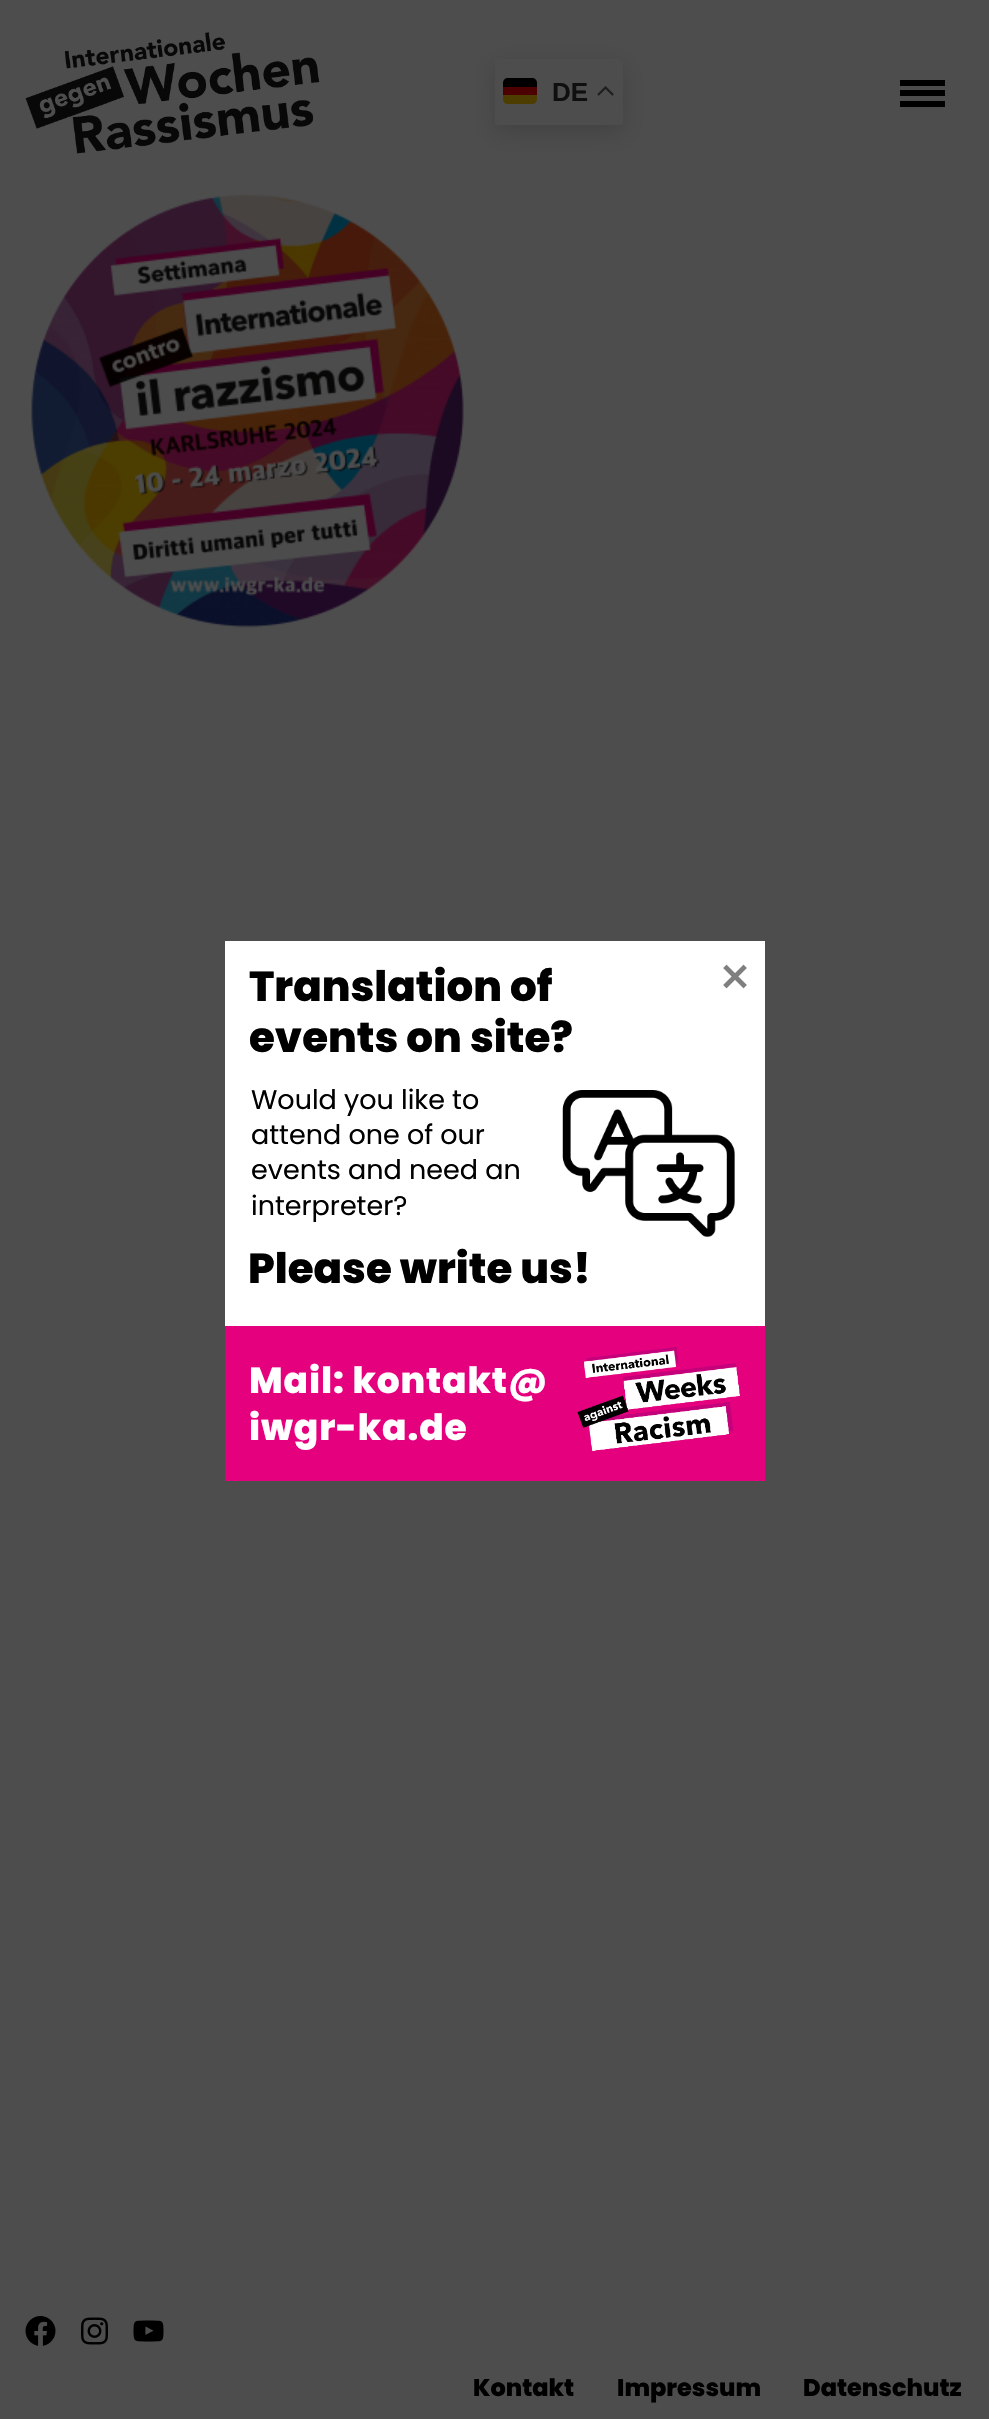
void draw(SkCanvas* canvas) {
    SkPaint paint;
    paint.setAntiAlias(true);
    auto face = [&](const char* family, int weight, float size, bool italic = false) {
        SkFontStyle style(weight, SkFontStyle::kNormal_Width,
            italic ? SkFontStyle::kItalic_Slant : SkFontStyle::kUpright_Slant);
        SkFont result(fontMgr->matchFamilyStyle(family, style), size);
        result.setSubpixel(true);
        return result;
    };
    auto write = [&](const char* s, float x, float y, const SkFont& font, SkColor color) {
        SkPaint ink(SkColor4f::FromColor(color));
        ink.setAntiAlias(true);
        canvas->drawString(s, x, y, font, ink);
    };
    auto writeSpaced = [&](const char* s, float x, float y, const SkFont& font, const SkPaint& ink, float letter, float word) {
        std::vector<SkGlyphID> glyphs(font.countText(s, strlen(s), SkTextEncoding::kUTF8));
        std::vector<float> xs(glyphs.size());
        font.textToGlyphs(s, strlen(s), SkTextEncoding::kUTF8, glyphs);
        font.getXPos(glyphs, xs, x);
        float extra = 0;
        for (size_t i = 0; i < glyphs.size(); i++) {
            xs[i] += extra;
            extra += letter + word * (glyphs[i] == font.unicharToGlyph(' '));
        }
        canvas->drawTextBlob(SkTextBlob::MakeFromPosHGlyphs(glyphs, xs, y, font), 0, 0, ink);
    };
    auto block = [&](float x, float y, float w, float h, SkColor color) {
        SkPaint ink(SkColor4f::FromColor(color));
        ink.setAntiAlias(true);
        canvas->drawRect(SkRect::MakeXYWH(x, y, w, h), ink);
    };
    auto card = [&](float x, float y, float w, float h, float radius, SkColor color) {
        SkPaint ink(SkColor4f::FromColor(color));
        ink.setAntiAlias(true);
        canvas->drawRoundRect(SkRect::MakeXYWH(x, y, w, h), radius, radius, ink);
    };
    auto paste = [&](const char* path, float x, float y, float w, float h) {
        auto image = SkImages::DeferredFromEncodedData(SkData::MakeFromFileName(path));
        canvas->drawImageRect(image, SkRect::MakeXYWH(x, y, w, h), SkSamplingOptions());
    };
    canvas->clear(SkColorSetRGB(77, 77, 77));
    block(225, 941, 540, 385, SK_ColorWHITE);
    auto kFont1 = face("Poppins", 800, 42);
    write("Translation of", 249, 1001, kFont1, SK_ColorBLACK);
    write("events on site?", 249, 1052, kFont1, SK_ColorBLACK);
    auto kFont2 = face("Poppins", 400, 27);
    write("Would you like to", 251, 1109, kFont2, SK_ColorBLACK);
    write("attend one of our", 251, 1144, kFont2, SK_ColorBLACK);
    write("events and need an", 251, 1179, kFont2, SK_ColorBLACK);
    write("interpreter?", 251, 1215, kFont2, SK_ColorBLACK);
    paste("pic1.png", 562, 1090, 173, 148);
    write("Please write us!", 248, 1283, kFont1, SK_ColorBLACK);
    block(225, 1326, 540, 155, SkColorSetRGB(229, 0, 126));
    auto kFont3 = face("Poppins", 800, 36);
    paint.setColor(SK_ColorWHITE);
    writeSpaced("Mail: kontakt@", 249, 1393, kFont3, paint, 0.9f, 0);
    writeSpaced("iwgr-ka.de", 249, 1440, kFont3, paint, 0.9f, 0);
    paste("pic2.png", 577, 1347, 163, 104);
    paste("pic3.png", 723, 964, 24, 25);
    paste("pic4.png", 25, 32, 295, 122);
    paint.setColor(SkColorSetARGB(38, 0, 0, 0));
    paint.setMaskFilter(SkMaskFilter::MakeBlur(kNormal_SkBlurStyle, 11));
    canvas->drawRoundRect(SkRect::MakeXYWH(495, 66, 128, 66), 3, 3, paint);
    paint.setMaskFilter(nullptr);
    card(495, 59, 128, 66, 3, SkColorSetRGB(77, 77, 77));
    paint.setColor(SkColorSetRGB(77, 61, 0));
    canvas->drawPath(SkPathBuilder().moveTo(503, 95).lineTo(537, 95).lineTo(537, 99).cubicTo(537, 102, 535, 104, 532, 104).lineTo(508, 104).cubicTo(505, 104, 503, 102, 503, 99).close().detach(), paint);
    paint.setColor(SK_ColorBLACK);
    canvas->drawPath(SkPathBuilder().moveTo(508, 78).lineTo(532, 78).cubicTo(535, 78, 537, 80, 537, 83).lineTo(537, 87).lineTo(503, 87).lineTo(503, 83).cubicTo(503, 80, 505, 78, 508, 78).close().detach(), paint);
    block(503, 87, 34, 8, SkColorSetRGB(77, 0, 0));
    auto kFont4 = face("Liberation Sans", 700, 26);
    write("DE", 552, 101, kFont4, SkColorSetRGB(15, 15, 15));
    paste("pic5.png", 597, 86, 17, 10);
    block(900, 80, 45, 6, SK_ColorBLACK);
    block(900, 90, 45, 6, SK_ColorBLACK);
    block(900, 101, 45, 6, SK_ColorBLACK);
    paste("pic6.png", 31, 194, 433, 434);
    paste("pic7.png", 25, 2316, 31, 30);
    paste("pic8.png", 81, 2317, 27, 28);
    paste("pic9.png", 133, 2320, 31, 22);
    auto kFont5 = face("Poppins", 800, 24);
    write("Kontakt", 473, 2396, kFont5, SK_ColorBLACK);
    write("Impressum", 617, 2396, kFont5, SK_ColorBLACK);
    write("Datenschutz", 803, 2396, kFont5, SK_ColorBLACK);
}
